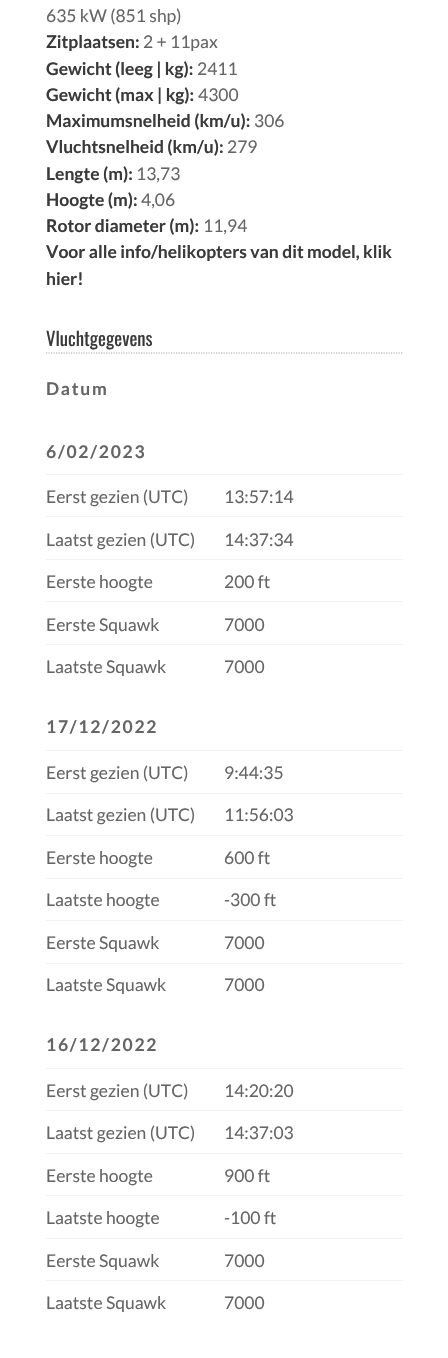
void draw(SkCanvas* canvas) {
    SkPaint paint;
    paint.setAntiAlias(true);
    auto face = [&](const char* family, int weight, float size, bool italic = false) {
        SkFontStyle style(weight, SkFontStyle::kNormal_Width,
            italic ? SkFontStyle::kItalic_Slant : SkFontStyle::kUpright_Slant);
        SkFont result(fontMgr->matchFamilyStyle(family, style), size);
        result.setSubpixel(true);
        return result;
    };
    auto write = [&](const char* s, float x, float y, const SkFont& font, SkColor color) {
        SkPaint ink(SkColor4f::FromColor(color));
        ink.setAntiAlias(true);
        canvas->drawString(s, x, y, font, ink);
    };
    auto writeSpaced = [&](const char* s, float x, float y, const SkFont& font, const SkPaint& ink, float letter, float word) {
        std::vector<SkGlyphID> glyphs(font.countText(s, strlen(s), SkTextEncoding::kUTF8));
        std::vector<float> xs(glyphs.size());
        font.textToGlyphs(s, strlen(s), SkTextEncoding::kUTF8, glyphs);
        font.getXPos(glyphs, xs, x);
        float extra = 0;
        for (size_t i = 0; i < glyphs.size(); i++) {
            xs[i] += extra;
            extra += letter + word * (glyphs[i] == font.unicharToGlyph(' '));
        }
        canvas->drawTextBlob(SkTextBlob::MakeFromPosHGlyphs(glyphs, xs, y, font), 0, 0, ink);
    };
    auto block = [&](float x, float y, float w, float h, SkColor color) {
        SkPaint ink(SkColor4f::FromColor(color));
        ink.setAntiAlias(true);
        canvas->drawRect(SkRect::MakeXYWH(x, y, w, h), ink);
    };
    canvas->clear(SK_ColorWHITE);
    auto kFont1 = face("Lato", 400, 17.5f);
    write("635 kW (851 shp)", 46, 22, kFont1, SkColorSetRGB(101, 101, 101));
    auto kFont2 = face("Lato", 700, 17.5f);
    write("Zitplaatsen:", 46, 48, kFont2, SkColorSetRGB(58, 58, 58));
    write("2 + 11pax", 143, 48, kFont1, SkColorSetRGB(101, 101, 101));
    write("Gewicht (leeg | kg):", 46, 75, kFont2, SkColorSetRGB(58, 58, 58));
    write("2411", 197, 75, kFont1, SkColorSetRGB(101, 101, 101));
    write("Gewicht (max | kg):", 46, 101, kFont2, SkColorSetRGB(58, 58, 58));
    write("4300", 198, 101, kFont1, SkColorSetRGB(101, 101, 101));
    write("Maximumsnelheid (km/u):", 46, 127, kFont2, SkColorSetRGB(58, 58, 58));
    write("306", 254, 127, kFont1, SkColorSetRGB(101, 101, 101));
    write("Vluchtsnelheid (km/u):", 46, 153, kFont2, SkColorSetRGB(58, 58, 58));
    write("279", 227, 153, kFont1, SkColorSetRGB(101, 101, 101));
    write("Lengte (m):", 46, 180, kFont2, SkColorSetRGB(58, 58, 58));
    write("13,73", 136, 180, kFont1, SkColorSetRGB(101, 101, 101));
    write("Hoogte (m):", 46, 206, kFont2, SkColorSetRGB(58, 58, 58));
    write("4,06", 141, 206, kFont1, SkColorSetRGB(101, 101, 101));
    write("Rotor diameter (m):", 46, 232, kFont2, SkColorSetRGB(58, 58, 58));
    write("11,94", 203, 232, kFont1, SkColorSetRGB(101, 101, 101));
    write("Voor alle info/helikopters van dit model, klik", 46, 258, kFont2, SkColorSetRGB(58, 58, 58));
    write("hier!", 46, 285, kFont2, SkColorSetRGB(58, 58, 58));
    paint.setStyle(SkPaint::kStroke_Style);
    paint.setStrokeWidth(1.2f);
    paint.setColor(SkColorSetRGB(170, 170, 170));
    paint.setPathEffect(SkDashPathEffect::Make({{1.25f, 1.25f}}, 0));
    canvas->drawPath(SkPathBuilder().moveTo(46, 353).lineTo(402.5f, 353).detach(), paint);
    paint.setPathEffect(nullptr);
    auto kFont3 = face("Oswald", 400, 18.75f);
    write("Vluchtgegevens", 46, 346, kFont3, SkColorSetRGB(58, 58, 58));
    paint.setStyle(SkPaint::kFill_Style);
    paint.setColor(SkColorSetRGB(101, 101, 101));
    writeSpaced("Datum", 46, 395, kFont2, paint, 1.75f, 0);
    writeSpaced("6/02/2023", 46, 458, kFont2, paint, 1.75f, 0);
    write("Eerst gezien (UTC)", 46, 503, kFont1, SkColorSetRGB(101, 101, 101));
    block(46, 474, 357, 1, SkColorSetRGB(242, 242, 242));
    write("13:57:14", 224, 503, kFont1, SkColorSetRGB(101, 101, 101));
    write("Laatst gezien (UTC)", 46, 546, kFont1, SkColorSetRGB(101, 101, 101));
    block(46, 516, 357, 1, SkColorSetRGB(242, 242, 242));
    write("14:37:34", 224, 546, kFont1, SkColorSetRGB(101, 101, 101));
    write("Eerste hoogte", 46, 588, kFont1, SkColorSetRGB(101, 101, 101));
    block(46, 559, 357, 1, SkColorSetRGB(242, 242, 242));
    write("200 ft", 224, 588, kFont1, SkColorSetRGB(101, 101, 101));
    write("Eerste Squawk", 46, 631, kFont1, SkColorSetRGB(101, 101, 101));
    block(46, 601, 357, 1, SkColorSetRGB(242, 242, 242));
    write("7000", 224, 631, kFont1, SkColorSetRGB(101, 101, 101));
    write("Laatste Squawk", 46, 673, kFont1, SkColorSetRGB(101, 101, 101));
    block(46, 644, 357, 1, SkColorSetRGB(242, 242, 242));
    write("7000", 224, 673, kFont1, SkColorSetRGB(101, 101, 101));
    writeSpaced("17/12/2022", 46, 733, kFont2, paint, 1.75f, 0);
    write("Eerst gezien (UTC)", 46, 779, kFont1, SkColorSetRGB(101, 101, 101));
    block(46, 750, 357, 1, SkColorSetRGB(242, 242, 242));
    write("9:44:35", 224, 779, kFont1, SkColorSetRGB(101, 101, 101));
    write("Laatst gezien (UTC)", 46, 821, kFont1, SkColorSetRGB(101, 101, 101));
    block(46, 793, 357, 1, SkColorSetRGB(242, 242, 242));
    write("11:56:03", 224, 821, kFont1, SkColorSetRGB(101, 101, 101));
    write("Eerste hoogte", 46, 864, kFont1, SkColorSetRGB(101, 101, 101));
    block(46, 835, 357, 1, SkColorSetRGB(242, 242, 242));
    write("600 ft", 224, 864, kFont1, SkColorSetRGB(101, 101, 101));
    write("Laatste hoogte", 46, 906, kFont1, SkColorSetRGB(101, 101, 101));
    block(46, 878, 357, 1, SkColorSetRGB(242, 242, 242));
    write("-300 ft", 224, 906, kFont1, SkColorSetRGB(101, 101, 101));
    write("Eerste Squawk", 46, 949, kFont1, SkColorSetRGB(101, 101, 101));
    block(46, 920, 357, 1, SkColorSetRGB(242, 242, 242));
    write("7000", 224, 949, kFont1, SkColorSetRGB(101, 101, 101));
    write("Laatste Squawk", 46, 991, kFont1, SkColorSetRGB(101, 101, 101));
    block(46, 963, 357, 1, SkColorSetRGB(242, 242, 242));
    write("7000", 224, 991, kFont1, SkColorSetRGB(101, 101, 101));
    writeSpaced("16/12/2022", 46, 1051, kFont2, paint, 1.75f, 0);
    write("Eerst gezien (UTC)", 46, 1097, kFont1, SkColorSetRGB(101, 101, 101));
    block(46, 1068, 357, 1, SkColorSetRGB(242, 242, 242));
    write("14:20:20", 224, 1097, kFont1, SkColorSetRGB(101, 101, 101));
    write("Laatst gezien (UTC)", 46, 1139, kFont1, SkColorSetRGB(101, 101, 101));
    block(46, 1110, 357, 1, SkColorSetRGB(242, 242, 242));
    write("14:37:03", 224, 1139, kFont1, SkColorSetRGB(101, 101, 101));
    write("Eerste hoogte", 46, 1182, kFont1, SkColorSetRGB(101, 101, 101));
    block(46, 1153, 357, 1, SkColorSetRGB(242, 242, 242));
    write("900 ft", 224, 1182, kFont1, SkColorSetRGB(101, 101, 101));
    write("Laatste hoogte", 46, 1224, kFont1, SkColorSetRGB(101, 101, 101));
    block(46, 1195, 357, 1, SkColorSetRGB(242, 242, 242));
    write("-100 ft", 224, 1224, kFont1, SkColorSetRGB(101, 101, 101));
    write("Eerste Squawk", 46, 1267, kFont1, SkColorSetRGB(101, 101, 101));
    block(46, 1238, 357, 1, SkColorSetRGB(242, 242, 242));
    write("7000", 224, 1267, kFont1, SkColorSetRGB(101, 101, 101));
    write("Laatste Squawk", 46, 1309, kFont1, SkColorSetRGB(101, 101, 101));
    block(46, 1280, 357, 1, SkColorSetRGB(242, 242, 242));
    write("7000", 224, 1309, kFont1, SkColorSetRGB(101, 101, 101));
}
